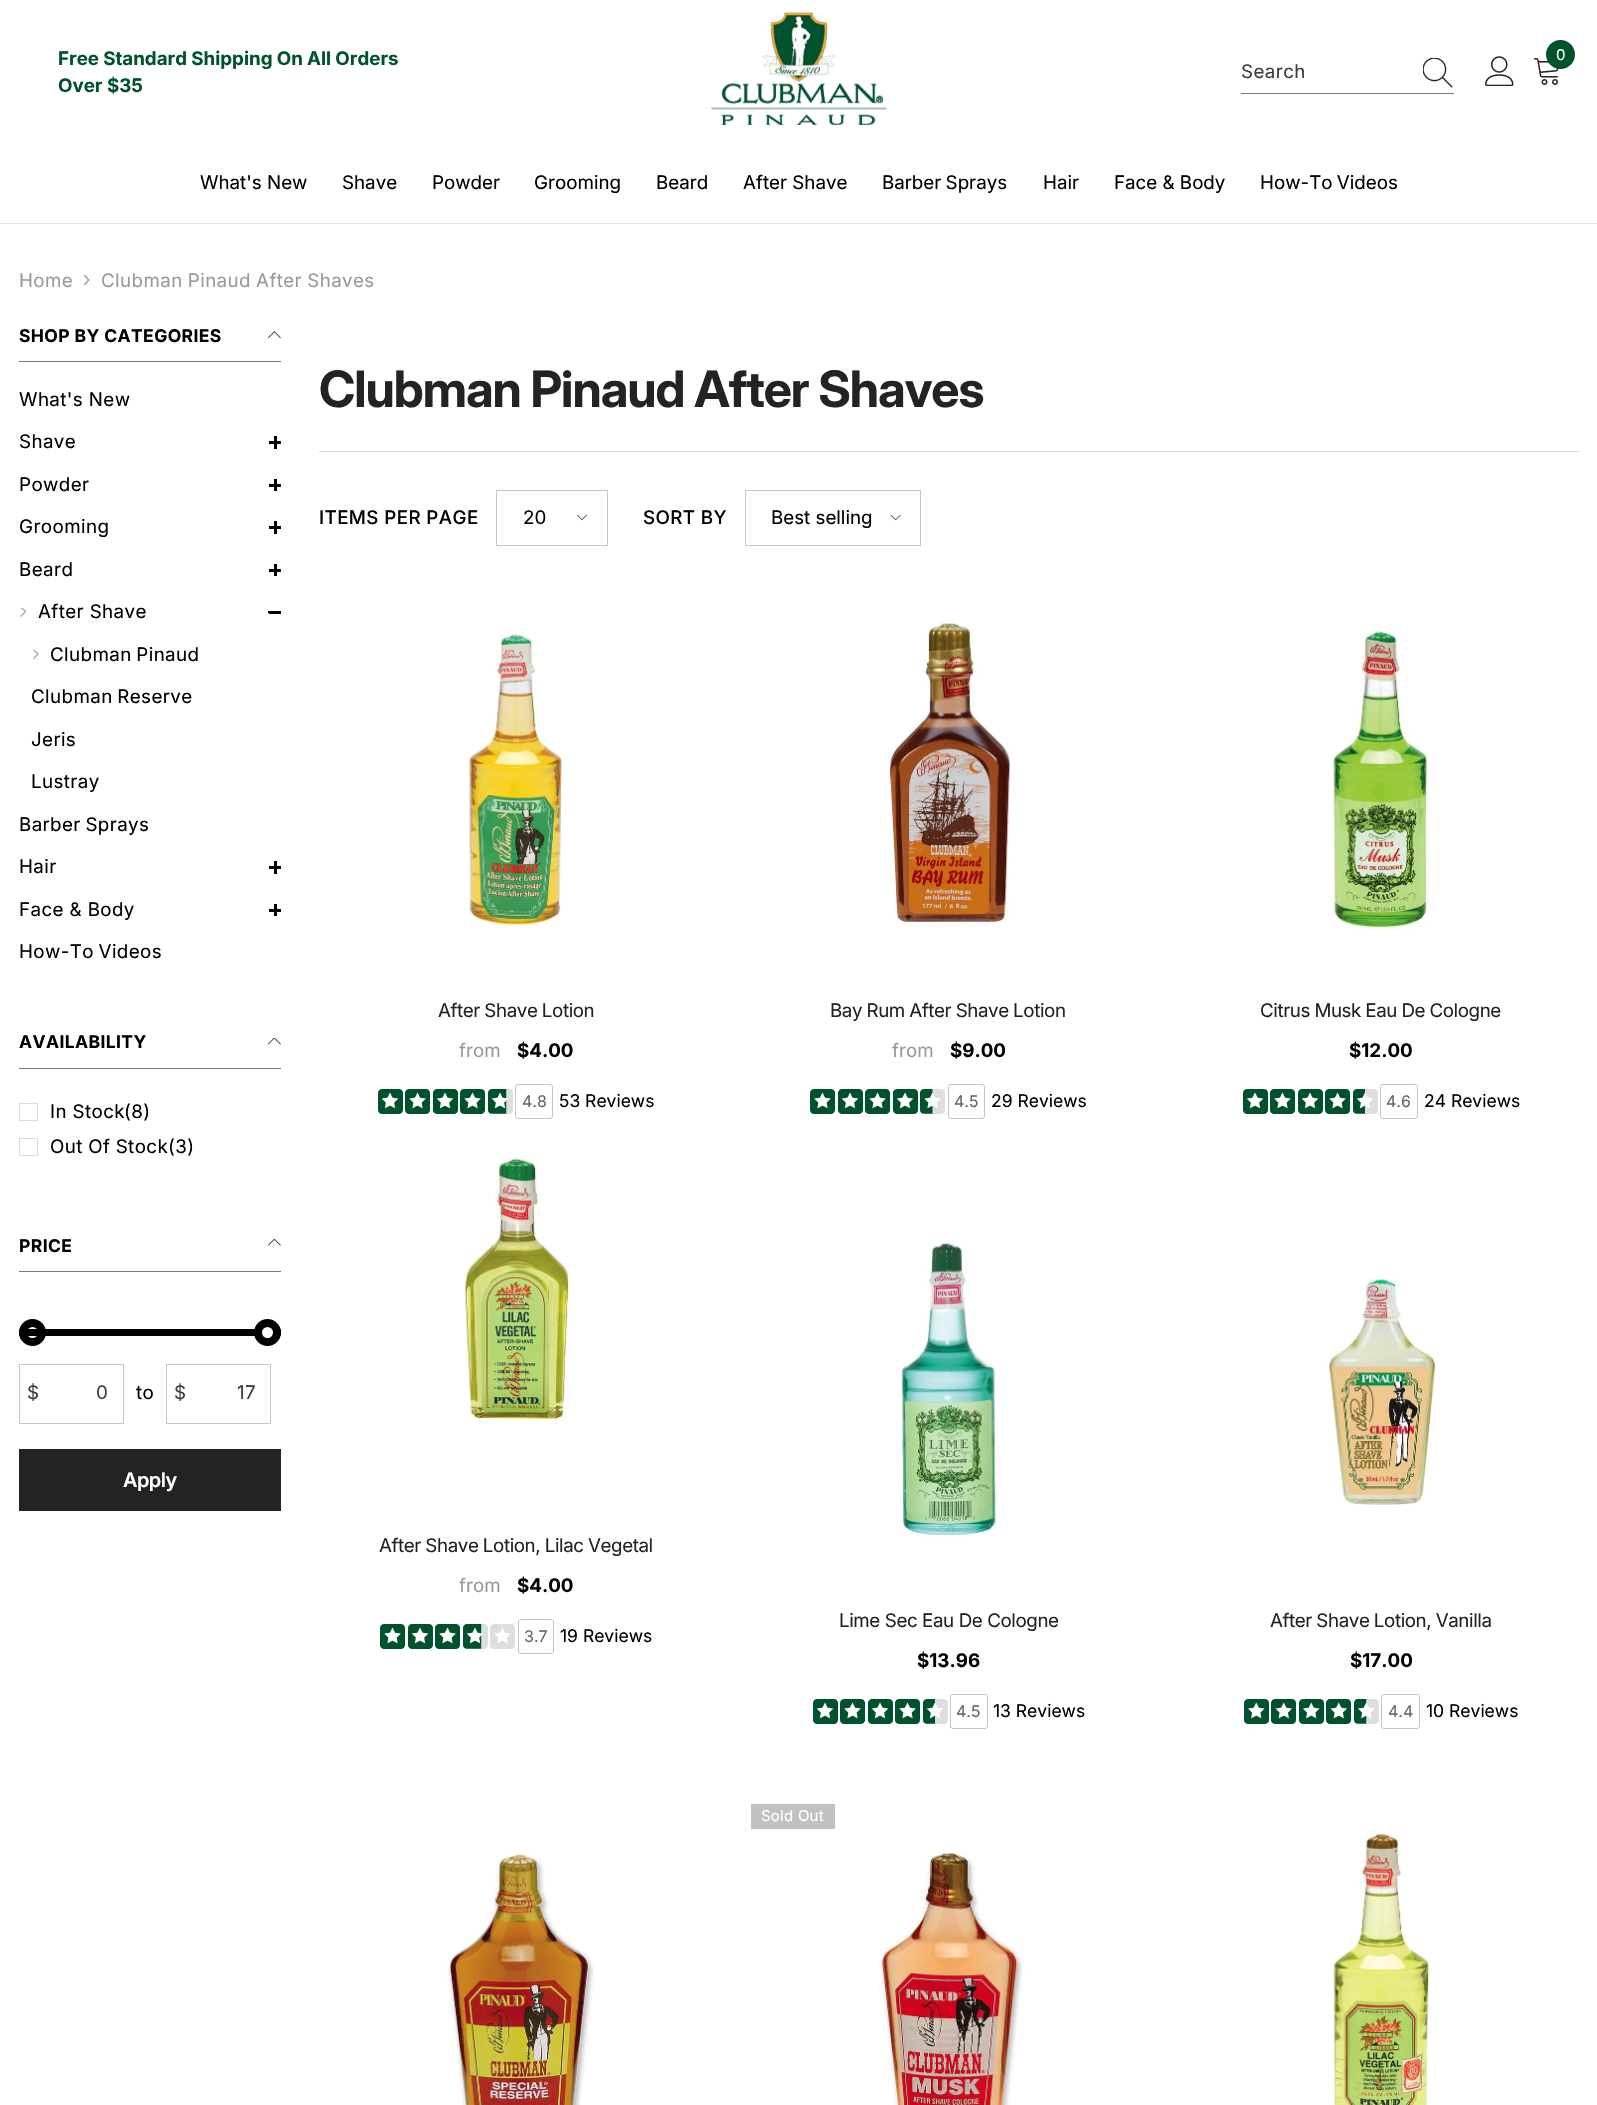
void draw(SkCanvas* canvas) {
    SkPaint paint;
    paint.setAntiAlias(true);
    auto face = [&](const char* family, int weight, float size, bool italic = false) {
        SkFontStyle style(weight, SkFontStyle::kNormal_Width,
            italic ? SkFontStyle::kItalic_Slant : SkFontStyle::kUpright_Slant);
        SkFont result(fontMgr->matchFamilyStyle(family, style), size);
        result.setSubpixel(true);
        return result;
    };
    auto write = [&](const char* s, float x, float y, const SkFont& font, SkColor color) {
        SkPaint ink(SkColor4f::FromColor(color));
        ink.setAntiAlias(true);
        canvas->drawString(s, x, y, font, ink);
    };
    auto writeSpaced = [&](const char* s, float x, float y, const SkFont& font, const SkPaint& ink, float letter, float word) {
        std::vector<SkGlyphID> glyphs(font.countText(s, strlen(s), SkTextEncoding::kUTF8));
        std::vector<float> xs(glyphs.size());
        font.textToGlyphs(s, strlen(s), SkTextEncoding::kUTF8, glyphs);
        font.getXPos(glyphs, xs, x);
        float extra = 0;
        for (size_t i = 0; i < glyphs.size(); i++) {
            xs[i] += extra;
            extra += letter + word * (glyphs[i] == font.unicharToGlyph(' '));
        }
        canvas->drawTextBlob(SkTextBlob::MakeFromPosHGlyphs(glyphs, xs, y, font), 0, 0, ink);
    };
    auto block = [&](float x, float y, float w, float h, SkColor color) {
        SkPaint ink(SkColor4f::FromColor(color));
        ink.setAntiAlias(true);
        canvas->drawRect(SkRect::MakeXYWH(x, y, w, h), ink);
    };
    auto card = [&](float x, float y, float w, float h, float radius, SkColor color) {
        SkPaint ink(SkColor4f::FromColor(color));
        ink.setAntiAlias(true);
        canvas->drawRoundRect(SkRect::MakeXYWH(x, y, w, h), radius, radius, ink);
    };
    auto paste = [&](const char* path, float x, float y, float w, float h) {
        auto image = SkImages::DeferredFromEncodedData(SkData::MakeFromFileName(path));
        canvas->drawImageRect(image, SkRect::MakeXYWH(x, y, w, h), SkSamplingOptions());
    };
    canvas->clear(SK_ColorWHITE);
    auto kFont1 = face("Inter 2", 700, 18.75f);
    paint.setColor(SkColorSetRGB(0, 82, 45));
    writeSpaced("Free Standard Shipping On All Orders", 58, 65, kFont1, paint, 0, -0.25f);
    write("Over $35", 58, 92, kFont1, SkColorSetRGB(0, 82, 45));
    paste("pic1.png", 711, 12, 176, 113);
    paste("pic2.png", 1534, 58, 25, 27);
    canvas->drawCircle(1560.5f, 54.5f, 14.5f, paint);
    auto kFont2 = face("Inter", 400, 15);
    write("0", 1556, 60, kFont2, SK_ColorWHITE);
    paste("pic3.png", 1485, 56, 29, 30);
    block(1241, 93, 213, 1, SkColorSetRGB(123, 123, 123));
    auto kFont3 = face("Inter", 400, 18.75f);
    paint.setColor(SkColorSetRGB(60, 60, 60));
    writeSpaced("Search", 1241, 78, kFont3, paint, 0.4f, 0);
    paste("pic4.png", 1423, 58, 30, 30);
    block(0, 223, 1597, 1, SkColorSetRGB(230, 230, 230));
    write("What's New", 200, 189, kFont3, SK_ColorBLACK);
    write("Shave", 342, 189, kFont3, SK_ColorBLACK);
    write("Powder", 432, 189, kFont3, SK_ColorBLACK);
    write("Grooming", 534, 189, kFont3, SK_ColorBLACK);
    write("Beard", 656, 189, kFont3, SK_ColorBLACK);
    write("After Shave", 743, 189, kFont3, SK_ColorBLACK);
    paint.setColor(SK_ColorBLACK);
    writeSpaced("Barber Sprays", 882, 189, kFont3, paint, 0, -1);
    write("Hair", 1043, 189, kFont3, SK_ColorBLACK);
    write("Face & Body", 1114, 189, kFont3, SK_ColorBLACK);
    writeSpaced("How-To Videos", 1260, 189, kFont3, paint, 0, -1);
    paint.setColor(SkColorSetRGB(153, 153, 153));
    writeSpaced("Home", 19, 287, kFont3, paint, 0.4f, 0);
    paste("pic5.png", 84, 274, 6, 12);
    writeSpaced("Clubman Pinaud After Shaves", 101, 287, kFont3, paint, 0.4f, -0.5f);
    block(19, 361, 262, 1, SkColorSetRGB(120, 120, 120));
    auto kFont4 = face("Inter 2", 700, 17.5f);
    paint.setColor(SK_ColorBLACK);
    writeSpaced("SHOP BY CATEGORIES", 19, 342, kFont4, paint, 0.4f, 0);
    paste("pic6.png", 268, 331, 13, 7);
    writeSpaced("What's New", 19, 406, kFont3, paint, 0.4f, 0);
    writeSpaced("Shave", 19, 448, kFont3, paint, 0.4f, 0);
    block(269, 441, 12, 3, SK_ColorBLACK);
    block(274, 436, 3, 13, SK_ColorBLACK);
    writeSpaced("Powder", 19, 491, kFont3, paint, 0.4f, 0);
    block(269, 484, 12, 3, SK_ColorBLACK);
    block(274, 479, 3, 12, SK_ColorBLACK);
    writeSpaced("Grooming", 19, 533, kFont3, paint, 0.4f, 0);
    block(269, 526, 12, 3, SK_ColorBLACK);
    block(274, 521, 3, 13, SK_ColorBLACK);
    writeSpaced("Beard", 19, 576, kFont3, paint, 0.4f, 0);
    block(269, 569, 12, 3, SK_ColorBLACK);
    block(274, 564, 3, 12, SK_ColorBLACK);
    paste("pic7.png", 20, 608, 6, 9);
    writeSpaced("After Shave", 38, 618, kFont3, paint, 0.4f, 0);
    block(268, 611, 1, 2, SK_ColorBLACK);
    block(269, 611, 12, 3, SK_ColorBLACK);
    paste("pic8.png", 32, 650, 7, 10);
    writeSpaced("Clubman Pinaud", 50, 661, kFont3, paint, 0.4f, -1);
    writeSpaced("Clubman Reserve", 31, 703, kFont3, paint, 0.4f, -1);
    writeSpaced("Jeris", 31, 746, kFont3, paint, 0.4f, 0);
    writeSpaced("Lustray", 31, 788, kFont3, paint, 0.4f, 0);
    writeSpaced("Barber Sprays", 19, 831, kFont3, paint, 0.4f, -1);
    writeSpaced("Hair", 19, 873, kFont3, paint, 0.4f, 0);
    block(269, 866, 12, 3, SK_ColorBLACK);
    block(274, 861, 3, 13, SK_ColorBLACK);
    writeSpaced("Face & Body", 19, 916, kFont3, paint, 0.4f, 0);
    block(269, 909, 12, 3, SK_ColorBLACK);
    block(274, 904, 3, 12, SK_ColorBLACK);
    writeSpaced("How-To Videos", 19, 958, kFont3, paint, 0.4f, -1);
    block(19, 1068, 262, 1, SkColorSetRGB(120, 120, 120));
    writeSpaced("AVAILABILITY", 19, 1048, kFont4, paint, 0.4f, 0);
    paste("pic9.png", 268, 1038, 13, 7);
    paint.setStyle(SkPaint::kStroke_Style);
    paint.setStrokeWidth(1);
    paint.setColor(SkColorSetRGB(219, 219, 219));
    canvas->drawRect(SkRect::MakeXYWH(19.5f, 1103.5f, 18, 17), paint);
    paint.setStyle(SkPaint::kFill_Style);
    paint.setColor(SK_ColorBLACK);
    writeSpaced("In Stock", 50, 1118, kFont3, paint, 0.4f, 0);
    writeSpaced("(8)", 124, 1118, kFont3, paint, 0.4f, 0);
    paint.setStyle(SkPaint::kStroke_Style);
    paint.setColor(SkColorSetRGB(219, 219, 219));
    canvas->drawRect(SkRect::MakeXYWH(19.5f, 1138.5f, 18, 17), paint);
    paint.setStyle(SkPaint::kFill_Style);
    paint.setColor(SK_ColorBLACK);
    writeSpaced("Out Of Stock", 50, 1153, kFont3, paint, 0.4f, -0.25f);
    writeSpaced("(3)", 168, 1153, kFont3, paint, 0.4f, 0);
    block(19, 1271, 262, 1, SkColorSetRGB(120, 120, 120));
    writeSpaced("PRICE", 19, 1252, kFont4, paint, 0.4f, 0);
    paste("pic10.png", 268, 1239, 13, 7);
    paint.setStyle(SkPaint::kStroke_Style);
    paint.setStrokeWidth(8);
    canvas->drawCircle(32.5f, 1332.5f, 9.5f, paint);
    card(19, 1329, 262, 7, 1, SK_ColorBLACK);
    paint.setStyle(SkPaint::kFill_Style);
    paint.setColor(SK_ColorWHITE);
    canvas->drawCircle(267.5f, 1332.5f, 9.5f, paint);
    paint.setStyle(SkPaint::kStroke_Style);
    paint.setColor(SK_ColorBLACK);
    canvas->drawCircle(267.5f, 1332.5f, 9.5f, paint);
    paint.setStrokeWidth(1);
    paint.setColor(SkColorSetRGB(199, 199, 199));
    canvas->drawRect(SkRect::MakeXYWH(19.5f, 1364.5f, 104, 59), paint);
    paint.setStyle(SkPaint::kFill_Style);
    paint.setColor(SkColorSetRGB(60, 60, 60));
    writeSpaced("$", 27, 1399, kFont3, paint, 0.4f, 0);
    writeSpaced("0", 96, 1399, kFont3, paint, 0.4f, 0);
    paint.setColor(SK_ColorBLACK);
    writeSpaced("to", 136, 1399, kFont3, paint, 0.4f, 0);
    paint.setStyle(SkPaint::kStroke_Style);
    paint.setColor(SkColorSetRGB(199, 199, 199));
    canvas->drawRect(SkRect::MakeXYWH(166.5f, 1364.5f, 104, 59), paint);
    paint.setStyle(SkPaint::kFill_Style);
    paint.setColor(SkColorSetRGB(60, 60, 60));
    writeSpaced("$", 174, 1399, kFont3, paint, 0.4f, 0);
    writeSpaced("17", 237, 1399, kFont3, paint, 0.4f, 0);
    block(19, 1449, 262, 62, SkColorSetRGB(35, 35, 35));
    auto kFont5 = face("Inter", 600, 20);
    paint.setColor(SK_ColorWHITE);
    writeSpaced("Apply", 123, 1487, kFont5, paint, -0.5f, 0);
    auto kFont6 = face("Inter", 700, 50);
    paint.setColor(SkColorSetRGB(35, 35, 35));
    writeSpaced("Clubman Pinaud After Shaves", 319, 407, kFont6, paint, -1, 0);
    block(319, 451, 1260, 1, SkColorSetRGB(222, 222, 222));
    auto kFont7 = face("Inter", 500, 18.75f);
    paint.setColor(SK_ColorBLACK);
    writeSpaced("ITEMS PER PAGE", 319, 524, kFont7, paint, 0.4f, 0);
    paint.setStyle(SkPaint::kStroke_Style);
    paint.setColor(SkColorSetRGB(199, 199, 199));
    canvas->drawRect(SkRect::MakeXYWH(496.5f, 490.5f, 111, 55), paint);
    write("20", 523, 524, kFont3, SK_ColorBLACK);
    paste("pic11.png", 576, 515, 11, 6);
    paint.setStyle(SkPaint::kFill_Style);
    paint.setColor(SK_ColorBLACK);
    writeSpaced("SORT BY", 643, 524, kFont7, paint, 0.4f, 0);
    paint.setStyle(SkPaint::kStroke_Style);
    paint.setColor(SkColorSetRGB(199, 199, 199));
    canvas->drawRect(SkRect::MakeXYWH(745.5f, 490.5f, 175, 55), paint);
    write("Best selling", 771, 524, kFont3, SK_ColorBLACK);
    paste("pic12.png", 890, 515, 11, 6);
    paste("pic13.png", 469, 634, 93, 292);
    paint.setStyle(SkPaint::kFill_Style);
    paint.setColor(SkColorSetRGB(35, 35, 35));
    writeSpaced("After Shave Lotion", 438, 1017, kFont3, paint, -0.4f, -0.5f);
    write("from", 459, 1057, kFont3, SkColorSetRGB(153, 153, 153));
    write("$4.00", 517, 1057, kFont1, SK_ColorBLACK);
    paste("pic14.png", 378, 1089, 25, 25);
    paste("pic15.png", 405, 1089, 25, 25);
    paste("pic14.png", 433, 1089, 25, 25);
    paste("pic15.png", 460, 1089, 25, 25);
    paste("pic16.png", 488, 1089, 25, 25);
    paint.setStyle(SkPaint::kStroke_Style);
    paint.setColor(SkColorSetRGB(197, 197, 197));
    canvas->drawRoundRect(SkRect::MakeXYWH(515.5f, 1084.5f, 37, 34), 2.5f, 2.5f, paint);
    auto kFont8 = face("Inter", 400, 16);
    write("4.8", 522, 1107, kFont8, SkColorSetRGB(102, 102, 102));
    auto kFont9 = face("Inter", 400, 17.5f);
    write("53 Reviews", 559, 1107, kFont9, SK_ColorBLACK);
    paste("pic17.png", 889, 622, 122, 301);
    paint.setStyle(SkPaint::kFill_Style);
    paint.setColor(SkColorSetRGB(35, 35, 35));
    writeSpaced("Bay Rum After Shave Lotion", 830, 1017, kFont3, paint, -0.4f, -0.5f);
    write("from", 892, 1057, kFont3, SkColorSetRGB(153, 153, 153));
    write("$9.00", 950, 1057, kFont1, SK_ColorBLACK);
    paste("pic15.png", 810, 1089, 25, 25);
    paste("pic14.png", 838, 1089, 25, 25);
    paste("pic15.png", 865, 1089, 25, 25);
    paste("pic14.png", 893, 1089, 25, 25);
    paste("pic18.png", 920, 1089, 25, 25);
    paint.setStyle(SkPaint::kStroke_Style);
    paint.setColor(SkColorSetRGB(197, 197, 197));
    canvas->drawRoundRect(SkRect::MakeXYWH(948.5f, 1084.5f, 36, 34), 2.5f, 2.5f, paint);
    write("4.5", 954, 1107, kFont8, SkColorSetRGB(102, 102, 102));
    write("29 Reviews", 991, 1107, kFont9, SK_ColorBLACK);
    paste("pic19.png", 1331, 631, 99, 300);
    paint.setStyle(SkPaint::kFill_Style);
    paint.setColor(SkColorSetRGB(35, 35, 35));
    writeSpaced("Citrus Musk Eau De Cologne", 1260, 1017, kFont3, paint, -0.4f, -0.5f);
    write("$12.00", 1349, 1057, kFont1, SK_ColorBLACK);
    paste("pic14.png", 1243, 1089, 25, 25);
    paste("pic15.png", 1270, 1089, 25, 25);
    paste("pic14.png", 1298, 1089, 25, 25);
    paste("pic15.png", 1325, 1089, 25, 25);
    paste("pic20.png", 1353, 1089, 25, 25);
    paint.setStyle(SkPaint::kStroke_Style);
    paint.setColor(SkColorSetRGB(197, 197, 197));
    canvas->drawRoundRect(SkRect::MakeXYWH(1380.5f, 1084.5f, 37, 34), 2.5f, 2.5f, paint);
    write("4.6", 1386, 1107, kFont8, SkColorSetRGB(102, 102, 102));
    write("24 Reviews", 1424, 1107, kFont9, SK_ColorBLACK);
    paste("pic21.png", 464, 1158, 108, 264);
    paint.setStyle(SkPaint::kFill_Style);
    paint.setColor(SkColorSetRGB(35, 35, 35));
    writeSpaced("After Shave Lotion, Lilac Vegetal", 379, 1552, kFont3, paint, -0.4f, -0.5f);
    write("from", 459, 1592, kFont3, SkColorSetRGB(153, 153, 153));
    write("$4.00", 517, 1592, kFont1, SK_ColorBLACK);
    paste("pic15.png", 380, 1624, 25, 25);
    paste("pic14.png", 408, 1624, 25, 25);
    paste("pic15.png", 435, 1624, 25, 25);
    paste("pic16.png", 463, 1624, 25, 25);
    paste("pic22.png", 490, 1624, 25, 25);
    paint.setStyle(SkPaint::kStroke_Style);
    paint.setColor(SkColorSetRGB(197, 197, 197));
    canvas->drawRoundRect(SkRect::MakeXYWH(518.5f, 1619.5f, 35, 34), 2.5f, 2.5f, paint);
    write("3.7", 524, 1642, kFont8, SkColorSetRGB(102, 102, 102));
    write("19 Reviews", 560, 1642, kFont9, SK_ColorBLACK);
    paste("pic23.png", 898, 1242, 99, 295);
    paint.setStyle(SkPaint::kFill_Style);
    paint.setColor(SkColorSetRGB(35, 35, 35));
    writeSpaced("Lime Sec Eau De Cologne", 839, 1627, kFont3, paint, -0.4f, 0);
    write("$13.96", 917, 1667, kFont1, SK_ColorBLACK);
    paste("pic14.png", 813, 1699, 25, 25);
    paste("pic15.png", 840, 1699, 25, 25);
    paste("pic14.png", 868, 1699, 25, 25);
    paste("pic15.png", 895, 1699, 25, 25);
    paste("pic20.png", 923, 1699, 25, 25);
    paint.setStyle(SkPaint::kStroke_Style);
    paint.setColor(SkColorSetRGB(197, 197, 197));
    canvas->drawRoundRect(SkRect::MakeXYWH(950.5f, 1694.5f, 37, 34), 2.5f, 2.5f, paint);
    write("4.5", 956, 1717, kFont8, SkColorSetRGB(102, 102, 102));
    write("13 Reviews", 993, 1717, kFont9, SK_ColorBLACK);
    paste("pic24.png", 1327, 1277, 110, 231);
    paint.setStyle(SkPaint::kFill_Style);
    paint.setColor(SkColorSetRGB(35, 35, 35));
    writeSpaced("After Shave Lotion, Vanilla", 1270, 1627, kFont3, paint, -0.4f, -0.5f);
    write("$17.00", 1350, 1667, kFont1, SK_ColorBLACK);
    paste("pic25.png", 1244, 1699, 25, 25);
    paste("pic26.png", 1271, 1699, 25, 25);
    paste("pic25.png", 1299, 1699, 25, 25);
    paste("pic26.png", 1326, 1699, 25, 25);
    paste("pic27.png", 1354, 1699, 25, 25);
    paint.setStyle(SkPaint::kStroke_Style);
    paint.setColor(SkColorSetRGB(197, 197, 197));
    canvas->drawRoundRect(SkRect::MakeXYWH(1381.5f, 1694.5f, 38, 34), 2.5f, 2.5f, paint);
    write("4.4", 1388, 1717, kFont8, SkColorSetRGB(102, 102, 102));
    write("10 Reviews", 1426, 1717, kFont9, SK_ColorBLACK);
    block(751, 1804, 84, 25, SkColorSetRGB(193, 193, 193));
    paint.setStyle(SkPaint::kFill_Style);
    paint.setColor(SK_ColorWHITE);
    writeSpaced("Sold Out", 761, 1821, kFont2, paint, 0.25f, 0);
    paste("pic28.png", 880, 1851, 145, 254);
    paste("pic29.png", 447, 1851, 148, 254);
    paste("pic30.png", 1333, 1833, 97, 272);
}
